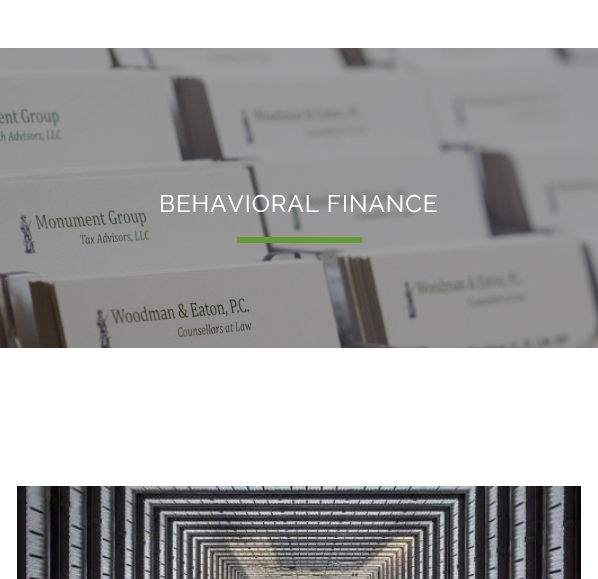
void draw(SkCanvas* canvas) {
    SkPaint paint;
    paint.setAntiAlias(true);
    auto face = [&](const char* family, int weight, float size, bool italic = false) {
        SkFontStyle style(weight, SkFontStyle::kNormal_Width,
            italic ? SkFontStyle::kItalic_Slant : SkFontStyle::kUpright_Slant);
        SkFont result(fontMgr->matchFamilyStyle(family, style), size);
        result.setSubpixel(true);
        return result;
    };
    auto writeSpaced = [&](const char* s, float x, float y, const SkFont& font, const SkPaint& ink, float letter, float word) {
        std::vector<SkGlyphID> glyphs(font.countText(s, strlen(s), SkTextEncoding::kUTF8));
        std::vector<float> xs(glyphs.size());
        font.textToGlyphs(s, strlen(s), SkTextEncoding::kUTF8, glyphs);
        font.getXPos(glyphs, xs, x);
        float extra = 0;
        for (size_t i = 0; i < glyphs.size(); i++) {
            xs[i] += extra;
            extra += letter + word * (glyphs[i] == font.unicharToGlyph(' '));
        }
        canvas->drawTextBlob(SkTextBlob::MakeFromPosHGlyphs(glyphs, xs, y, font), 0, 0, ink);
    };
    auto block = [&](float x, float y, float w, float h, SkColor color) {
        SkPaint ink(SkColor4f::FromColor(color));
        ink.setAntiAlias(true);
        canvas->drawRect(SkRect::MakeXYWH(x, y, w, h), ink);
    };
    auto paste = [&](const char* path, float x, float y, float w, float h) {
        auto image = SkImages::DeferredFromEncodedData(SkData::MakeFromFileName(path));
        canvas->drawImageRect(image, SkRect::MakeXYWH(x, y, w, h), SkSamplingOptions());
    };
    canvas->clear(SK_ColorWHITE);
    paste("pic1.png", 0, 48, 598, 300);
    auto kFont1 = face("Raleway", 100, 24);
    paint.setColor(SK_ColorWHITE);
    writeSpaced("BEHAVIORAL FINANCE", 159, 212, kFont1, paint, 1, 0);
    block(237, 237, 125, 6, SkColorSetRGB(102, 153, 51));
    paste("pic2.png", 17, 486, 564, 93);
}
